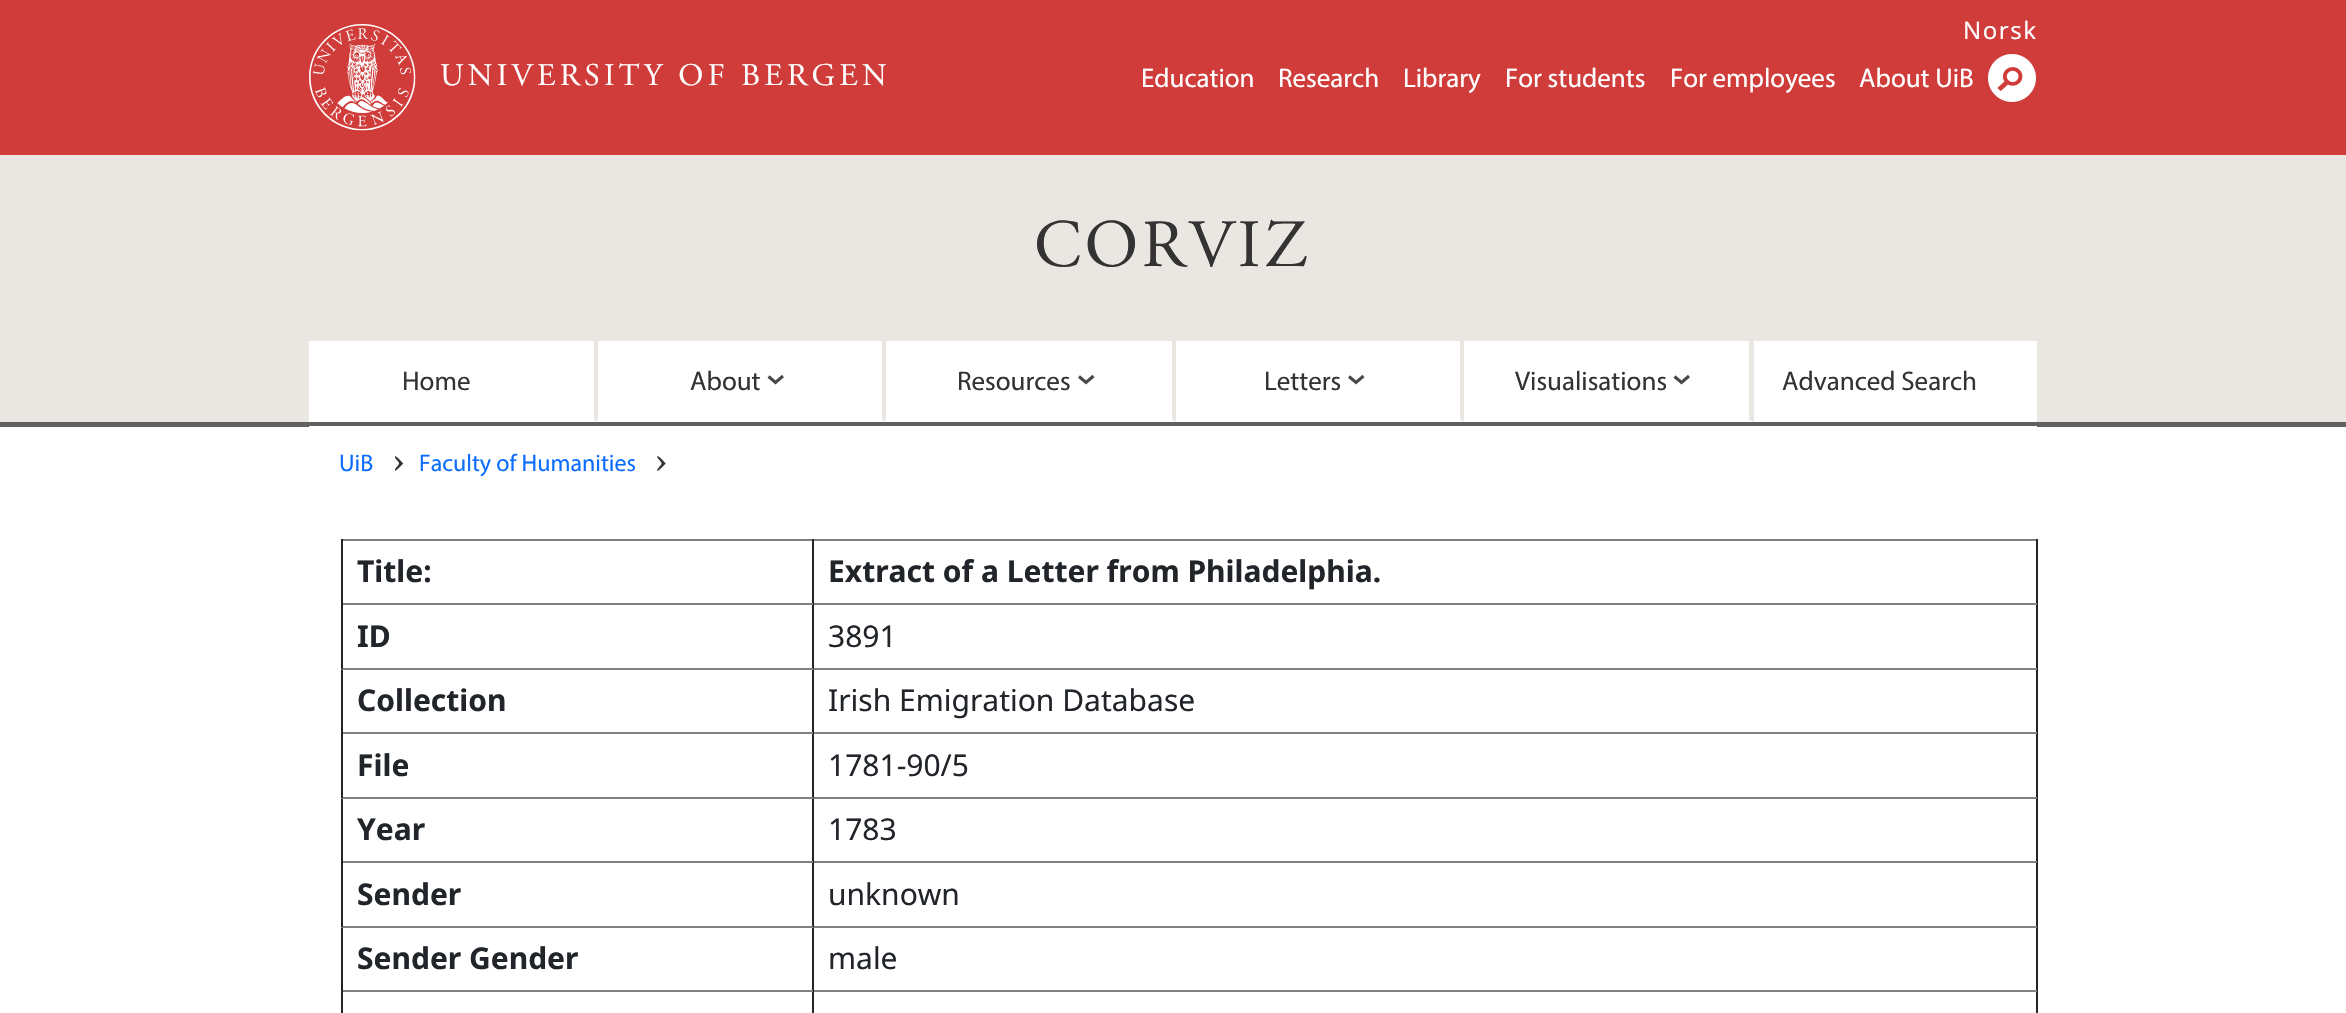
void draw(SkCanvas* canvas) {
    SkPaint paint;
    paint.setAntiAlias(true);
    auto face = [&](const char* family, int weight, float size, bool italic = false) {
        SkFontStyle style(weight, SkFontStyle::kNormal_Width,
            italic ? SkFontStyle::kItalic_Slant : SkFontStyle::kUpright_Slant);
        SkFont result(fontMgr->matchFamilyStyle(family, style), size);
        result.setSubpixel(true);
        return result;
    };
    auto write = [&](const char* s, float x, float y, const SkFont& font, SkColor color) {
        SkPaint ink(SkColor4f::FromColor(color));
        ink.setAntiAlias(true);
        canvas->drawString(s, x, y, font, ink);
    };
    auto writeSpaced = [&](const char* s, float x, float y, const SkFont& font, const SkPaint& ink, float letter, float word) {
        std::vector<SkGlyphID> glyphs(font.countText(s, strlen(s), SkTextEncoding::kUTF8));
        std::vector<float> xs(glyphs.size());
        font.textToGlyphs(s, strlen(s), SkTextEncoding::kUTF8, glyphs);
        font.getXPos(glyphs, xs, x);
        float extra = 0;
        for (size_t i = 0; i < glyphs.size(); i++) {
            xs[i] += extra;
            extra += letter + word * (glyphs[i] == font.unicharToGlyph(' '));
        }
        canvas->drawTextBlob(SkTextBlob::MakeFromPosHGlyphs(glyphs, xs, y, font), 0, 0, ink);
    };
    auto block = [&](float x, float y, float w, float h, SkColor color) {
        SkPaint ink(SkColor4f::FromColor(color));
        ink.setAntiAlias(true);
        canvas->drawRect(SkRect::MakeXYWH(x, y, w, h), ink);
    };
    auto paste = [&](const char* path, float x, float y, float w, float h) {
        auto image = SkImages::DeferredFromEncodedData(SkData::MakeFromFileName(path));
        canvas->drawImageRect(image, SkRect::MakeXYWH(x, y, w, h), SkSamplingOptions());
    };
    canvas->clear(SK_ColorWHITE);
    block(0, 0, 2346, 155, SkColorSetRGB(207, 60, 58));
    paste("pic1.png", 309, 24, 107, 107);
    auto kFont1 = face("Adobe Garamond", 400, 31.5f);
    paint.setColor(SK_ColorWHITE);
    writeSpaced("UNIVERSITY OF BERGEN", 440, 85, kFont1, paint, 4.25f, 0);
    auto kFont2 = face("Noto Sans", 400, 24);
    writeSpaced("Norsk", 1963, 39, kFont2, paint, 1.5f, 0);
    auto kFont3 = face("Myriad", 400, 27);
    write("Education", 1141, 87, kFont3, SK_ColorWHITE);
    write("Research", 1278, 87, kFont3, SK_ColorWHITE);
    write("Library", 1403, 87, kFont3, SK_ColorWHITE);
    write("For students", 1505, 87, kFont3, SK_ColorWHITE);
    write("For employees", 1670, 87, kFont3, SK_ColorWHITE);
    write("About UiB", 1859, 87, kFont3, SK_ColorWHITE);
    paste("pic2.png", 1988, 54, 48, 48);
    block(0, 155, 2346, 267, SkColorSetRGB(234, 230, 226));
    auto kFont4 = face("Adobe Garamond", 400, 67.5f);
    paint.setColor(SkColorSetRGB(51, 51, 51));
    writeSpaced("CORVIZ", 1034, 266, kFont4, paint, 3.5f, 0);
    block(0, 422, 2346, 5, SkColorSetRGB(96, 96, 96));
    block(309, 341, 1728, 81, SK_ColorWHITE);
    paint.setColor(SkColorSetRGB(234, 230, 226));
    canvas->drawPath(SkPathBuilder().moveTo(598, 340).lineTo(598, 422).lineTo(594, 420).lineTo(594, 340).close().detach(), paint);
    paint.setColor(SK_ColorWHITE);
    canvas->drawPath(SkPathBuilder().moveTo(598, 422).lineTo(309, 422).lineTo(309, 420).lineTo(594, 420).close().detach(), paint);
    write("Home", 402, 390, kFont3, SkColorSetRGB(51, 51, 51));
    paint.setColor(SkColorSetRGB(234, 230, 226));
    canvas->drawPath(SkPathBuilder().moveTo(886, 340).lineTo(886, 422).lineTo(882, 420).lineTo(882, 340).close().detach(), paint);
    paint.setColor(SK_ColorWHITE);
    canvas->drawPath(SkPathBuilder().moveTo(886, 422).lineTo(598, 422).lineTo(598, 420).lineTo(882, 420).close().detach(), paint);
    write("About", 690, 390, kFont3, SkColorSetRGB(51, 51, 51));
    paint.setStyle(SkPaint::kStroke_Style);
    paint.setStrokeWidth(3);
    paint.setColor(SkColorSetRGB(71, 71, 71));
    canvas->drawPath(SkPathBuilder().moveTo(783, 376).lineTo(775.5f, 382.5f).lineTo(768.5f, 376.5f).detach(), paint);
    paint.setStyle(SkPaint::kFill_Style);
    paint.setColor(SkColorSetRGB(234, 230, 226));
    canvas->drawPath(SkPathBuilder().moveTo(1176, 340).lineTo(1176, 422).lineTo(1172, 420).lineTo(1172, 340).close().detach(), paint);
    paint.setColor(SK_ColorWHITE);
    canvas->drawPath(SkPathBuilder().moveTo(1176, 422).lineTo(886, 422).lineTo(886, 420).lineTo(1172, 420).close().detach(), paint);
    write("Resources", 957, 390, kFont3, SkColorSetRGB(51, 51, 51));
    paint.setStyle(SkPaint::kStroke_Style);
    paint.setColor(SkColorSetRGB(71, 71, 71));
    canvas->drawPath(SkPathBuilder().moveTo(1093.5f, 376).lineTo(1086, 382.5f).lineTo(1079, 376.5f).detach(), paint);
    paint.setStyle(SkPaint::kFill_Style);
    paint.setColor(SkColorSetRGB(234, 230, 226));
    canvas->drawPath(SkPathBuilder().moveTo(1464, 340).lineTo(1464, 422).lineTo(1460, 420).lineTo(1460, 340).close().detach(), paint);
    paint.setColor(SK_ColorWHITE);
    canvas->drawPath(SkPathBuilder().moveTo(1464, 422).lineTo(1176, 422).lineTo(1176, 420).lineTo(1460, 420).close().detach(), paint);
    write("Letters", 1264, 390, kFont3, SkColorSetRGB(51, 51, 51));
    paint.setStyle(SkPaint::kStroke_Style);
    paint.setColor(SkColorSetRGB(71, 71, 71));
    canvas->drawPath(SkPathBuilder().moveTo(1363.5f, 376).lineTo(1356, 382.5f).lineTo(1349, 376.5f).detach(), paint);
    paint.setStyle(SkPaint::kFill_Style);
    paint.setColor(SkColorSetRGB(234, 230, 226));
    canvas->drawPath(SkPathBuilder().moveTo(1754, 340).lineTo(1754, 422).lineTo(1749, 420).lineTo(1749, 340).close().detach(), paint);
    paint.setColor(SK_ColorWHITE);
    canvas->drawPath(SkPathBuilder().moveTo(1754, 422).lineTo(1464, 422).lineTo(1464, 420).lineTo(1749, 420).close().detach(), paint);
    write("Visualisations", 1515, 390, kFont3, SkColorSetRGB(51, 51, 51));
    paint.setStyle(SkPaint::kStroke_Style);
    paint.setColor(SkColorSetRGB(71, 71, 71));
    canvas->drawPath(SkPathBuilder().moveTo(1689, 376).lineTo(1681.5f, 382.5f).lineTo(1674.5f, 376.5f).detach(), paint);
    write("Advanced Search", 1782, 390, kFont3, SkColorSetRGB(51, 51, 51));
    block(309, 426, 1728, 1, SK_ColorWHITE);
    auto kFont5 = face("Myriad", 400, 24);
    write("UiB", 339, 471, kFont5, SkColorSetRGB(13, 110, 253));
    paste("pic3.png", 395, 456, 9, 15);
    write("Faculty of Humanities", 419, 471, kFont5, SkColorSetRGB(13, 110, 253));
    paste("pic4.png", 657, 456, 9, 15);
    block(341, 539, 1696, 2, SkColorSetRGB(128, 128, 128));
    block(2036, 603, 2, 410, SkColorSetRGB(33, 37, 41));
    block(2036, 539, 2, 66, SkColorSetRGB(33, 37, 41));
    block(812, 990, 2, 23, SkColorSetRGB(33, 37, 41));
    block(812, 990, 1225, 2, SkColorSetRGB(128, 128, 128));
    block(812, 926, 2, 66, SkColorSetRGB(33, 37, 41));
    block(812, 926, 1225, 2, SkColorSetRGB(128, 128, 128));
    block(812, 861, 2, 66, SkColorSetRGB(33, 37, 41));
    block(812, 861, 1225, 2, SkColorSetRGB(128, 128, 128));
    block(812, 797, 2, 66, SkColorSetRGB(33, 37, 41));
    block(812, 797, 1225, 2, SkColorSetRGB(128, 128, 128));
    block(812, 732, 2, 66, SkColorSetRGB(33, 37, 41));
    block(812, 732, 1225, 2, SkColorSetRGB(128, 128, 128));
    block(812, 668, 2, 66, SkColorSetRGB(33, 37, 41));
    block(812, 668, 1225, 2, SkColorSetRGB(128, 128, 128));
    block(812, 603, 2, 66, SkColorSetRGB(33, 37, 41));
    block(812, 603, 1225, 2, SkColorSetRGB(128, 128, 128));
    block(812, 539, 2, 66, SkColorSetRGB(33, 37, 41));
    block(341, 990, 2, 23, SkColorSetRGB(33, 37, 41));
    block(341, 990, 472, 2, SkColorSetRGB(128, 128, 128));
    block(341, 926, 2, 66, SkColorSetRGB(33, 37, 41));
    block(341, 926, 472, 2, SkColorSetRGB(128, 128, 128));
    block(341, 861, 2, 66, SkColorSetRGB(33, 37, 41));
    block(341, 861, 472, 2, SkColorSetRGB(128, 128, 128));
    block(341, 797, 2, 66, SkColorSetRGB(33, 37, 41));
    block(341, 797, 472, 2, SkColorSetRGB(128, 128, 128));
    block(341, 732, 2, 66, SkColorSetRGB(33, 37, 41));
    block(341, 732, 472, 2, SkColorSetRGB(128, 128, 128));
    block(341, 668, 2, 66, SkColorSetRGB(33, 37, 41));
    block(341, 668, 472, 2, SkColorSetRGB(128, 128, 128));
    block(341, 603, 2, 66, SkColorSetRGB(33, 37, 41));
    block(341, 603, 472, 2, SkColorSetRGB(128, 128, 128));
    block(341, 539, 2, 66, SkColorSetRGB(33, 37, 41));
    auto kFont6 = face("Noto Sans", 700, 30);
    write("Title:", 357, 582, kFont6, SkColorSetRGB(33, 37, 41));
    write("Extract of a Letter from Philadelphia.", 828, 582, kFont6, SkColorSetRGB(33, 37, 41));
    write("ID", 357, 647, kFont6, SkColorSetRGB(33, 37, 41));
    auto kFont7 = face("Noto Sans", 400, 30);
    write("3891", 828, 647, kFont7, SkColorSetRGB(33, 37, 41));
    write("Collection", 357, 711, kFont6, SkColorSetRGB(33, 37, 41));
    write("Irish Emigration Database", 828, 711, kFont7, SkColorSetRGB(33, 37, 41));
    write("File", 357, 776, kFont6, SkColorSetRGB(33, 37, 41));
    write("1781-90/5", 828, 776, kFont7, SkColorSetRGB(33, 37, 41));
    write("Year", 357, 840, kFont6, SkColorSetRGB(33, 37, 41));
    write("1783", 828, 840, kFont7, SkColorSetRGB(33, 37, 41));
    write("Sender", 357, 905, kFont6, SkColorSetRGB(33, 37, 41));
    write("unknown", 828, 905, kFont7, SkColorSetRGB(33, 37, 41));
    write("Sender Gender", 357, 969, kFont6, SkColorSetRGB(33, 37, 41));
    write("male", 828, 969, kFont7, SkColorSetRGB(33, 37, 41));
}
